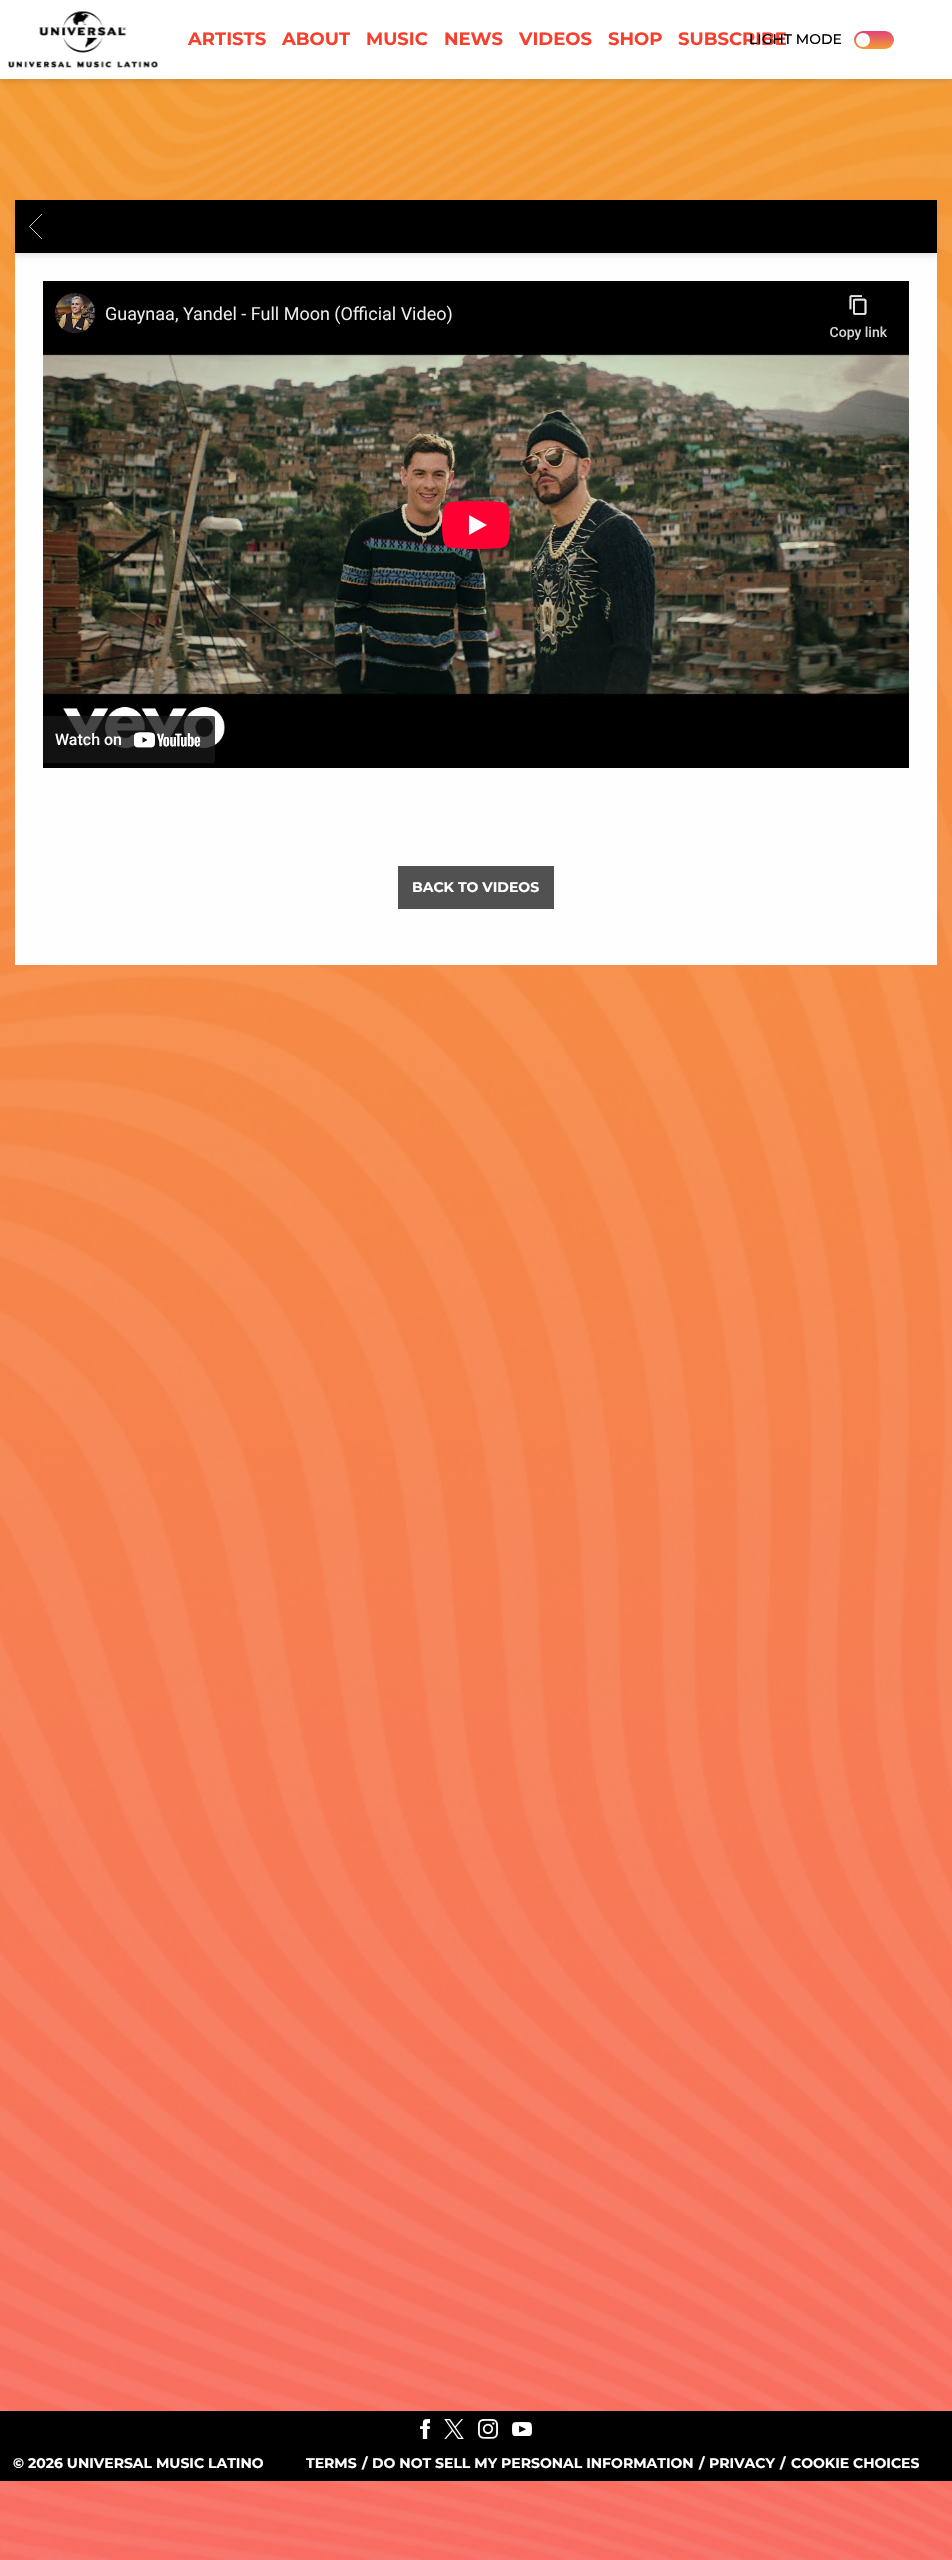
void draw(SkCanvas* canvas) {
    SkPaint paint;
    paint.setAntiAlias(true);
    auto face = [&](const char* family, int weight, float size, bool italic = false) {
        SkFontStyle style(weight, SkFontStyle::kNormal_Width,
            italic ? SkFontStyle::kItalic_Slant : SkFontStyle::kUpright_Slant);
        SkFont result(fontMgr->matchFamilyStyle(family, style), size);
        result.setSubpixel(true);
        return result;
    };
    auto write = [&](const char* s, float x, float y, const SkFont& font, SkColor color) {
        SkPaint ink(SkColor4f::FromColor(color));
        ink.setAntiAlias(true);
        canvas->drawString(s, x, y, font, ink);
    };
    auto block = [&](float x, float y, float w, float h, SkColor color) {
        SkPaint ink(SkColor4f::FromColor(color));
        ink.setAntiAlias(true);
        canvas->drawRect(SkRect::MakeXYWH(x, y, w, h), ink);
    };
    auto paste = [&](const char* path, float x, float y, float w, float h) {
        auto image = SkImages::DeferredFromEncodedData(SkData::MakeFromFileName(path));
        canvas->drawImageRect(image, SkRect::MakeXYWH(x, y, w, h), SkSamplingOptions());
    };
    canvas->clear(SK_ColorWHITE);
    paste("pic1.png", 0, 79, 952, 2481);
    paint.setColor(SkColorSetARGB(26, 0, 0, 0));
    paint.setMaskFilter(SkMaskFilter::MakeBlur(kNormal_SkBlurStyle, 2.5f));
    canvas->drawRect(SkRect::MakeXYWH(0, 3, 952, 79), paint);
    paint.setMaskFilter(nullptr);
    block(0, 0, 952, 79, SK_ColorWHITE);
    paste("pic2.png", 8, 11, 150, 57);
    auto kFont1 = face("Montserrat", 100, 18);
    write("ARTISTS", 188, 45, kFont1, SkColorSetRGB(246, 64, 45));
    write("ABOUT", 282, 45, kFont1, SkColorSetRGB(246, 64, 45));
    write("MUSIC", 366, 45, kFont1, SkColorSetRGB(246, 64, 45));
    write("NEWS", 444, 45, kFont1, SkColorSetRGB(246, 64, 45));
    write("VIDEOS", 519, 45, kFont1, SkColorSetRGB(246, 64, 45));
    write("SHOP", 608, 45, kFont1, SkColorSetRGB(246, 64, 45));
    write("SUBSCRIBE", 678, 45, kFont1, SkColorSetRGB(246, 64, 45));
    auto kFont2 = face("Montserrat", 500, 14);
    write("LIGHT MODE", 749, 44, kFont2, SK_ColorBLACK);
    {
        const SkColor colors[] = {SkColorSetRGB(224, 65, 121), SkColorSetRGB(244, 157, 51)};
        const float stops[] = {0, 1};
        const SkPoint ends[] = {{874, 31}, {874, 49}};
        paint.setShader(SkGradientShader::MakeLinear(ends, colors, stops, 2, SkTileMode::kClamp));
        paint.setAlpha(255);
    }
    canvas->drawRoundRect(SkRect::MakeXYWH(854, 31, 40, 18), 9, 9, paint);
    paint.setShader(nullptr);
    paint.setColor(SK_ColorWHITE);
    canvas->drawCircle(863, 40, 7, paint);
    block(15, 253, 922, 712, SkColorSetRGB(254, 254, 254));
    paint.setColor(SkColorSetARGB(26, 0, 0, 0));
    paint.setMaskFilter(SkMaskFilter::MakeBlur(kNormal_SkBlurStyle, 2.5f));
    canvas->drawRect(SkRect::MakeXYWH(15, 203, 922, 53), paint);
    paint.setMaskFilter(nullptr);
    block(15, 200, 922, 53, SK_ColorBLACK);
    canvas->save();
    canvas->clipRect(SkRect::MakeXYWH(29, 214, 13, 25));
    paint.setStyle(SkPaint::kStroke_Style);
    paint.setStrokeWidth(0.8f);
    paint.setColor(SK_ColorWHITE);
    canvas->drawPath(SkPathBuilder().moveTo(42, 239).lineTo(29.5f, 226.5f).lineTo(42, 214).detach(), paint);
    canvas->restore();
    paste("pic3.png", 43, 281, 866, 487);
    block(398, 866, 156, 43, SkColorSetRGB(81, 81, 81));
    auto kFont3 = face("Montserrat", 100, 14);
    write("BACK TO VIDEOS", 412, 892, kFont3, SK_ColorWHITE);
    block(0, 2411, 952, 70, SK_ColorBLACK);
    paste("pic4.png", 420, 2419, 10, 20);
    paste("pic5.png", 444, 2419, 20, 20);
    paste("pic6.png", 478, 2419, 20, 20);
    paste("pic7.png", 512, 2422, 20, 14);
    write("© 2026 UNIVERSAL MUSIC LATINO", 13, 2468, kFont3, SK_ColorWHITE);
    write("TERMS", 306, 2468, kFont3, SK_ColorWHITE);
    write("/", 362, 2468, kFont3, SK_ColorWHITE);
    write("DO NOT SELL MY PERSONAL INFORMATION", 372, 2468, kFont3, SK_ColorWHITE);
    write("/", 699, 2468, kFont3, SK_ColorWHITE);
    write("PRIVACY", 709, 2468, kFont3, SK_ColorWHITE);
    write("/", 780, 2468, kFont3, SK_ColorWHITE);
    write("COOKIE CHOICES", 791, 2468, kFont3, SK_ColorWHITE);
}
